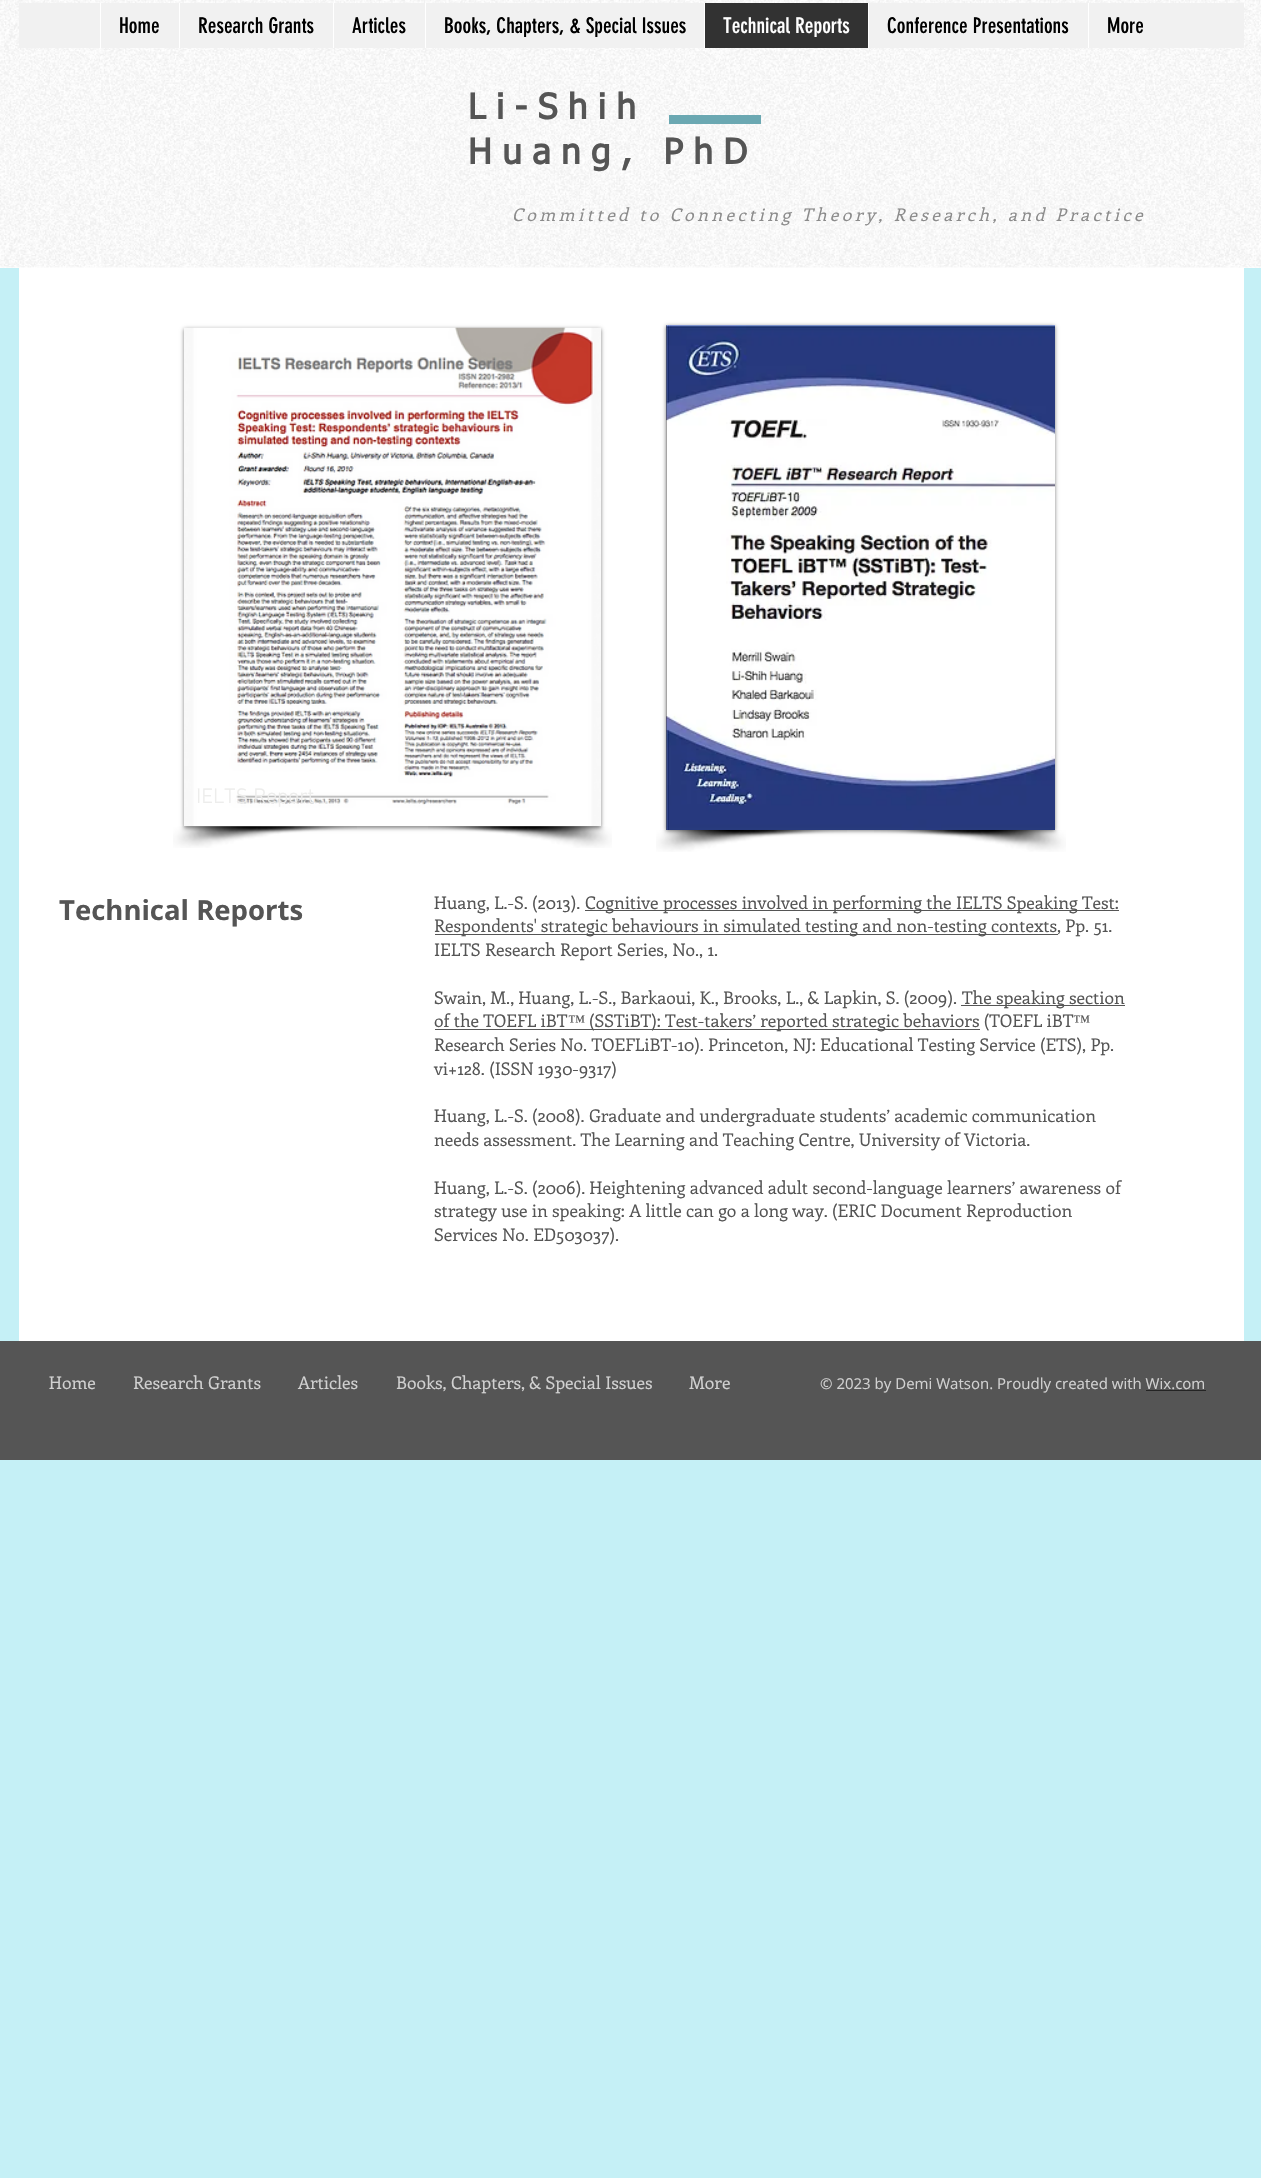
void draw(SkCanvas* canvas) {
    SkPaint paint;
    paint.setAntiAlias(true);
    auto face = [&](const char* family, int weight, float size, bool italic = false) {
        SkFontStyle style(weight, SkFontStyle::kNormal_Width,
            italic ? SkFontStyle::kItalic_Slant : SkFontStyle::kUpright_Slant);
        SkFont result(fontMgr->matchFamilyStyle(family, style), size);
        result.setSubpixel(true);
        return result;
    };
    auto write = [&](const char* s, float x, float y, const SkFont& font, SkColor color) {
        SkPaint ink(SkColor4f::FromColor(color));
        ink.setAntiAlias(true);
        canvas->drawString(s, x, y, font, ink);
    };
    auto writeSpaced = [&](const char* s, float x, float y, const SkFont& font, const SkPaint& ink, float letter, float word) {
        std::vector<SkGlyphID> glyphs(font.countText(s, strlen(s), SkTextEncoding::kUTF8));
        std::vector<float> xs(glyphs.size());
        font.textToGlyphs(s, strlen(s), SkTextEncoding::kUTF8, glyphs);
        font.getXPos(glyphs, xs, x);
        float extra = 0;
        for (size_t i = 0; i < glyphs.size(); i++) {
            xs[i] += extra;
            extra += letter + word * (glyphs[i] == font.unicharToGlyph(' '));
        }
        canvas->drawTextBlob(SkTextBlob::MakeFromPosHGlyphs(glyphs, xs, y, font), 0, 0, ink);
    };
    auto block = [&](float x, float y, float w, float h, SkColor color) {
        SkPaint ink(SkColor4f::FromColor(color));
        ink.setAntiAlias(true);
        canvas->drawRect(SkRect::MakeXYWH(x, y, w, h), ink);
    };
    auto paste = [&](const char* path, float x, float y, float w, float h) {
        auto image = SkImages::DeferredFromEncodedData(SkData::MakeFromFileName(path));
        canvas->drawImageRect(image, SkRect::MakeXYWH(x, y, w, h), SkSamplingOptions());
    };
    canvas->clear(SkColorSetRGB(197, 240, 246));
    block(0, 0, 1261, 268, SK_ColorWHITE);
    paste("pic1.png", 0, 0, 1261, 268);
    block(19, 3, 1225, 45, SkColorSetRGB(241, 241, 241));
    block(100, 3, 1, 45, SK_ColorWHITE);
    auto kFont1 = face("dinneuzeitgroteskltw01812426", 400, 21.25f);
    write("Home", 119, 33, kFont1, SK_ColorBLACK);
    block(179, 3, 1, 45, SK_ColorWHITE);
    write("Research Grants", 198, 33, kFont1, SK_ColorBLACK);
    block(333, 3, 1, 45, SK_ColorWHITE);
    write("Articles", 352, 33, kFont1, SK_ColorBLACK);
    block(425, 3, 1, 45, SK_ColorWHITE);
    write("Books, Chapters, & Special Issues", 444, 33, kFont1, SK_ColorBLACK);
    block(705, 3, 163, 45, SkColorSetRGB(50, 50, 50));
    block(704, 3, 1, 45, SK_ColorWHITE);
    write("Technical Reports", 723, 33, kFont1, SK_ColorWHITE);
    block(868, 3, 1, 45, SK_ColorWHITE);
    write("Conference Presentations", 887, 33, kFont1, SK_ColorBLACK);
    block(1088, 3, 1, 45, SK_ColorWHITE);
    write("More", 1107, 33, kFont1, SK_ColorBLACK);
    auto kFont2 = face("tahoma", 700, 35);
    paint.setColor(SkColorSetRGB(85, 85, 85));
    writeSpaced("Li-Shih", 468, 119, kFont2, paint, 10.5f, 0);
    writeSpaced("Huang, PhD", 468, 164, kFont2, paint, 10.5f, 0);
    block(669, 115, 92, 9, SkColorSetRGB(107, 168, 178));
    auto kFont3 = face("Enriqueta", 400, 17.5f, true);
    paint.setColor(SkColorSetRGB(139, 139, 139));
    writeSpaced("Committed to Connecting Theory, Research, and Practice", 512, 221, kFont3, paint, 3.5f, 0);
    block(19, 268, 1225, 1073, SK_ColorWHITE);
    paint.setColor(SkColorSetARGB(128, 0, 0, 0));
    paint.setMaskFilter(SkMaskFilter::MakeBlur(kNormal_SkBlurStyle, 2));
    canvas->drawRect(SkRect::MakeXYWH(184, 329, 417, 499), paint);
    paint.setMaskFilter(nullptr);
    paste("pic3.png", 173, 826, 184, 22);
    paste("pic2.png", 184, 327, 417, 500);
    auto kFont4 = face("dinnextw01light", 300, 21.25f);
    write("IELTS Report", 196, 803, kFont4, SkColorSetRGB(237, 237, 236));
    paste("pic4.png", 428, 826, 184, 22);
    paint.setMaskFilter(SkMaskFilter::MakeBlur(kNormal_SkBlurStyle, 2));
    canvas->drawRect(SkRect::MakeXYWH(666, 326, 389, 505), paint);
    paint.setMaskFilter(nullptr);
    block(666, 325, 1, 505, SkColorSetRGB(47, 46, 46));
    paste("pic5.png", 666, 325, 389, 505);
    paste("pic6.png", 656, 830, 191, 22);
    paste("pic7.png", 874, 830, 192, 22);
    auto kFont5 = face("Open Sans", 700, 27.5f);
    write("Technical Reports", 59, 920, kFont5, SkColorSetRGB(85, 85, 85));
    auto kFont6 = face("Enriqueta", 400, 17.5f);
    write("Huang, L.-S. (2013).", 434, 909, kFont6, SkColorSetRGB(85, 85, 85));
    block(585, 910, 534, 1, SkColorSetRGB(85, 85, 85));
    write("Cognitive processes involved in performing the IELTS Speaking Test:", 585, 909, kFont6, SkColorSetRGB(85, 85, 85));
    block(435, 934, 623, 1, SkColorSetRGB(85, 85, 85));
    write("Respondents' strategic behaviours in simulated testing and non-testing contexts, Pp. 51.", 434, 932, kFont6, SkColorSetRGB(85, 85, 85));
    write("IELTS Research Report Series, No., 1.", 434, 956, kFont6, SkColorSetRGB(85, 85, 85));
    write("Swain, M., Huang, L.-S., Barkaoui, K., Brooks, L., & Lapkin, S. (2009).", 434, 1004, kFont6, SkColorSetRGB(85, 85, 85));
    block(961, 1005, 164, 1, SkColorSetRGB(85, 85, 85));
    write("The speaking section", 962, 1004, kFont6, SkColorSetRGB(85, 85, 85));
    write("of the TOEFL iBT", 434, 1027, kFont6, SkColorSetRGB(85, 85, 85));
    auto kFont7 = face("Liberation Serif", 400, 17.5f);
    write("™", 568, 1027, kFont7, SkColorSetRGB(85, 85, 85));
    block(435, 1029, 545, 1, SkColorSetRGB(85, 85, 85));
    write("(SSTiBT): Test-takers’ reported strategic behaviors (TOEFL iBT", 589, 1027, kFont6, SkColorSetRGB(85, 85, 85));
    write("™", 1073, 1027, kFont7, SkColorSetRGB(85, 85, 85));
    write("Research Series No. TOEFLiBT-10). Princeton, NJ: Educational Testing Service (ETS), Pp.", 434, 1051, kFont6, SkColorSetRGB(85, 85, 85));
    write("vi+128. (ISSN 1930-9317)", 434, 1075, kFont6, SkColorSetRGB(85, 85, 85));
    write("Huang, L.-S. (2008). Graduate and undergraduate students’ academic communication", 434, 1122, kFont6, SkColorSetRGB(85, 85, 85));
    write("needs assessment. The Learning and Teaching Centre, University of Victoria.", 434, 1146, kFont6, SkColorSetRGB(85, 85, 85));
    write("Huang, L.-S. (2006). Heightening advanced adult second-language learners’ awareness of", 434, 1194, kFont6, SkColorSetRGB(85, 85, 85));
    write("strategy use in speaking: A little can go a long way. (ERIC Document Reproduction", 434, 1217, kFont6, SkColorSetRGB(85, 85, 85));
    write("Services No. ED503037).", 434, 1241, kFont6, SkColorSetRGB(85, 85, 85));
    block(0, 1341, 1261, 119, SkColorSetRGB(85, 85, 85));
    write("Home", 49, 1389, kFont6, SkColorSetRGB(209, 209, 209));
    write("Research Grants", 133, 1389, kFont6, SkColorSetRGB(209, 209, 209));
    write("Articles", 298, 1389, kFont6, SkColorSetRGB(209, 209, 209));
    write("Books, Chapters, & Special Issues", 396, 1389, kFont6, SkColorSetRGB(209, 209, 209));
    write("More", 689, 1389, kFont6, SkColorSetRGB(209, 209, 209));
    auto kFont8 = face("Open Sans", 400, 15);
    write("© 2023 by Demi Watson. Proudly created with Wix.com", 820, 1389, kFont8, SkColorSetRGB(209, 209, 209));
    block(1146, 1390, 60, 1, SkColorSetRGB(36, 36, 36));
}
